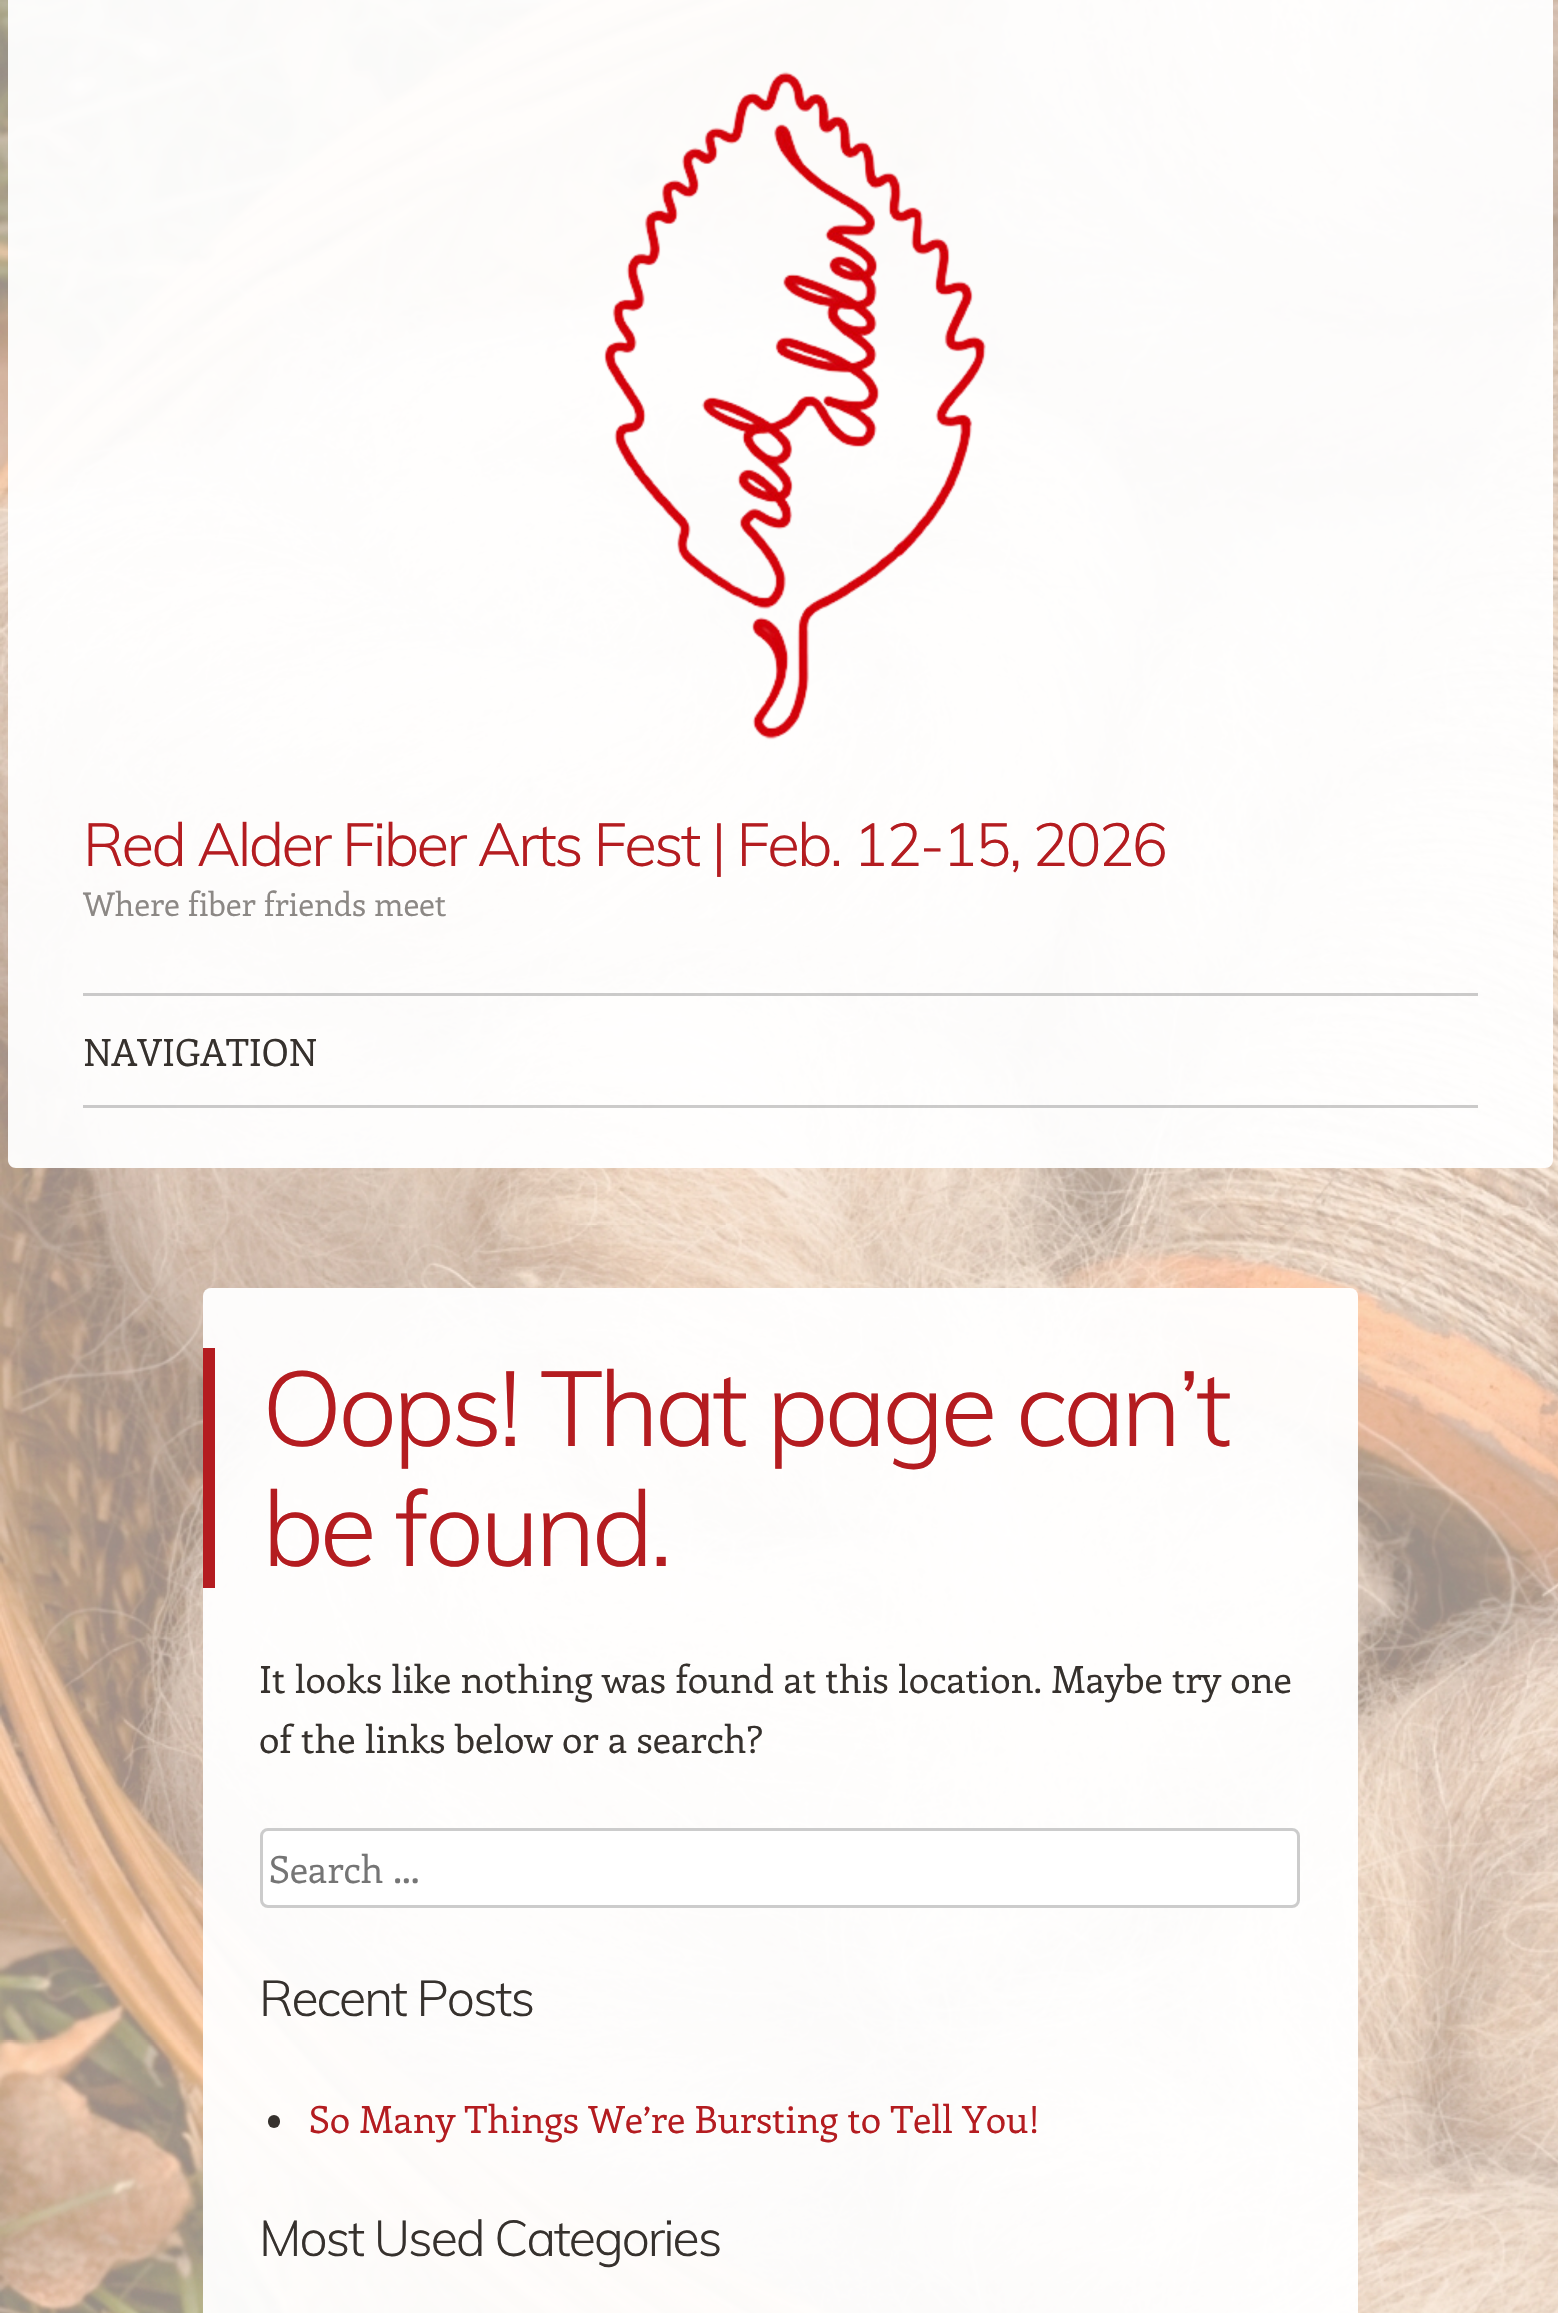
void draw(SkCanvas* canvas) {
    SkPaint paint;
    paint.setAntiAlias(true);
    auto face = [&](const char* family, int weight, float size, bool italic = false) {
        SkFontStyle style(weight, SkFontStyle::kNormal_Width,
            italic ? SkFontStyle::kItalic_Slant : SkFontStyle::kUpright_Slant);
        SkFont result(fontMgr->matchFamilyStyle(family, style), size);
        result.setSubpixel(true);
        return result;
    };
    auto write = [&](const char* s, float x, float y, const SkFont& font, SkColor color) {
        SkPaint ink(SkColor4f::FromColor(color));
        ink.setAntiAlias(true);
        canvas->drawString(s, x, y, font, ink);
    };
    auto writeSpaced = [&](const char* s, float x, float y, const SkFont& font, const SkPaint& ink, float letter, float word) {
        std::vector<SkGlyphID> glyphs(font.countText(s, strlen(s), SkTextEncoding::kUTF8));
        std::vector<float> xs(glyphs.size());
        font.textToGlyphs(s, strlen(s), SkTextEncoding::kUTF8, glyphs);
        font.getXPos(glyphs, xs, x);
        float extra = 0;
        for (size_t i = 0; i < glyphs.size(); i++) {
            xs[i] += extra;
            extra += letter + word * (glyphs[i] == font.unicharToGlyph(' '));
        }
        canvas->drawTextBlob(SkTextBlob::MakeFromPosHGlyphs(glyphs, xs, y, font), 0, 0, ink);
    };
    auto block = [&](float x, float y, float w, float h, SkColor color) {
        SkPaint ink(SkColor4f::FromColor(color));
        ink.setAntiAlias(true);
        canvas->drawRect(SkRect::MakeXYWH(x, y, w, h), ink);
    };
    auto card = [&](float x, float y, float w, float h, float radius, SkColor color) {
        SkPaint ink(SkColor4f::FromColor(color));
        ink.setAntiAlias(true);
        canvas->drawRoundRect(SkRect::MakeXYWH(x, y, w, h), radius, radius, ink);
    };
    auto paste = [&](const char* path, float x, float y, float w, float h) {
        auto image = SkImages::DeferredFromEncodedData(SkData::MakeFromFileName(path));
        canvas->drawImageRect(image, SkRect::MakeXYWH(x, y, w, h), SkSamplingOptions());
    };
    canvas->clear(SK_ColorWHITE);
    paste("pic1.png", 0, 0, 1558, 2313);
    paint.setColor(SkColorSetARGB(242, 255, 255, 255));
    canvas->drawPath(SkPathBuilder().moveTo(8, 0).lineTo(1553, 0).lineTo(1553, 1160).cubicTo(1553, 1164.5f, 1549.5f, 1168, 1545, 1168).lineTo(16, 1168).cubicTo(11.5f, 1168, 8, 1164.5f, 8, 1160).close().detach(), paint);
    paste("pic2.png", 604, 71, 382, 669);
    auto kFont1 = face("Muli", 300, 60);
    paint.setColor(SkColorSetRGB(180, 28, 32));
    writeSpaced("Red Alder Fiber Arts Fest | Feb. 12-15, 2026", 83, 866, kFont1, paint, -2.7f, 0);
    auto kFont2 = face("Enriqueta", 400, 32.5f);
    write("Where fiber friends meet", 83, 916, kFont2, SkColorSetRGB(140, 136, 133));
    block(83, 993, 1395, 3, SkColorSetARGB(51, 0, 0, 0));
    block(83, 1105, 1395, 3, SkColorSetARGB(51, 0, 0, 0));
    auto kFont3 = face("Enriqueta", 400, 37.5f);
    write("NAVIGATION", 83, 1066, kFont3, SkColorSetRGB(54, 49, 45));
    card(203, 1288, 1155, 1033, 8, SkColorSetARGB(242, 255, 255, 255));
    block(203, 1348, 12, 240, SkColorSetRGB(180, 28, 32));
    auto kFont4 = face("Muli", 300, 105);
    writeSpaced("Oops! That page can’t", 262, 1446, kFont4, paint, -4.2f, 0);
    writeSpaced("be found.", 262, 1566, kFont4, paint, -4.2f, 0);
    write("It looks like nothing was found at this location. Maybe try one", 259, 1693, kFont3, SkColorSetRGB(54, 49, 45));
    write("of the links below or a search?", 259, 1753, kFont3, SkColorSetRGB(54, 49, 45));
    paint.setColor(SK_ColorWHITE);
    canvas->drawRoundRect(SkRect::MakeXYWH(261.5f, 1829.5f, 1037, 77), 6.5f, 6.5f, paint);
    paint.setStyle(SkPaint::kStroke_Style);
    paint.setStrokeWidth(3);
    paint.setColor(SkColorSetRGB(204, 204, 204));
    canvas->drawRoundRect(SkRect::MakeXYWH(261.5f, 1829.5f, 1037, 77), 6.5f, 6.5f, paint);
    write("Search …", 269, 1883, kFont3, SkColorSetRGB(117, 117, 117));
    auto kFont5 = face("Muli", 300, 50);
    paint.setStyle(SkPaint::kFill_Style);
    paint.setColor(SkColorSetRGB(54, 49, 45));
    writeSpaced("Recent Posts", 259, 2016, kFont5, paint, -2, 0);
    card(268, 2115, 12, 13, 6, SkColorSetRGB(54, 49, 45));
    write("So Many Things We’re Bursting to Tell You!", 309, 2133, kFont3, SkColorSetRGB(180, 28, 32));
    writeSpaced("Most Used Categories", 259, 2256, kFont5, paint, -2, 0);
}
